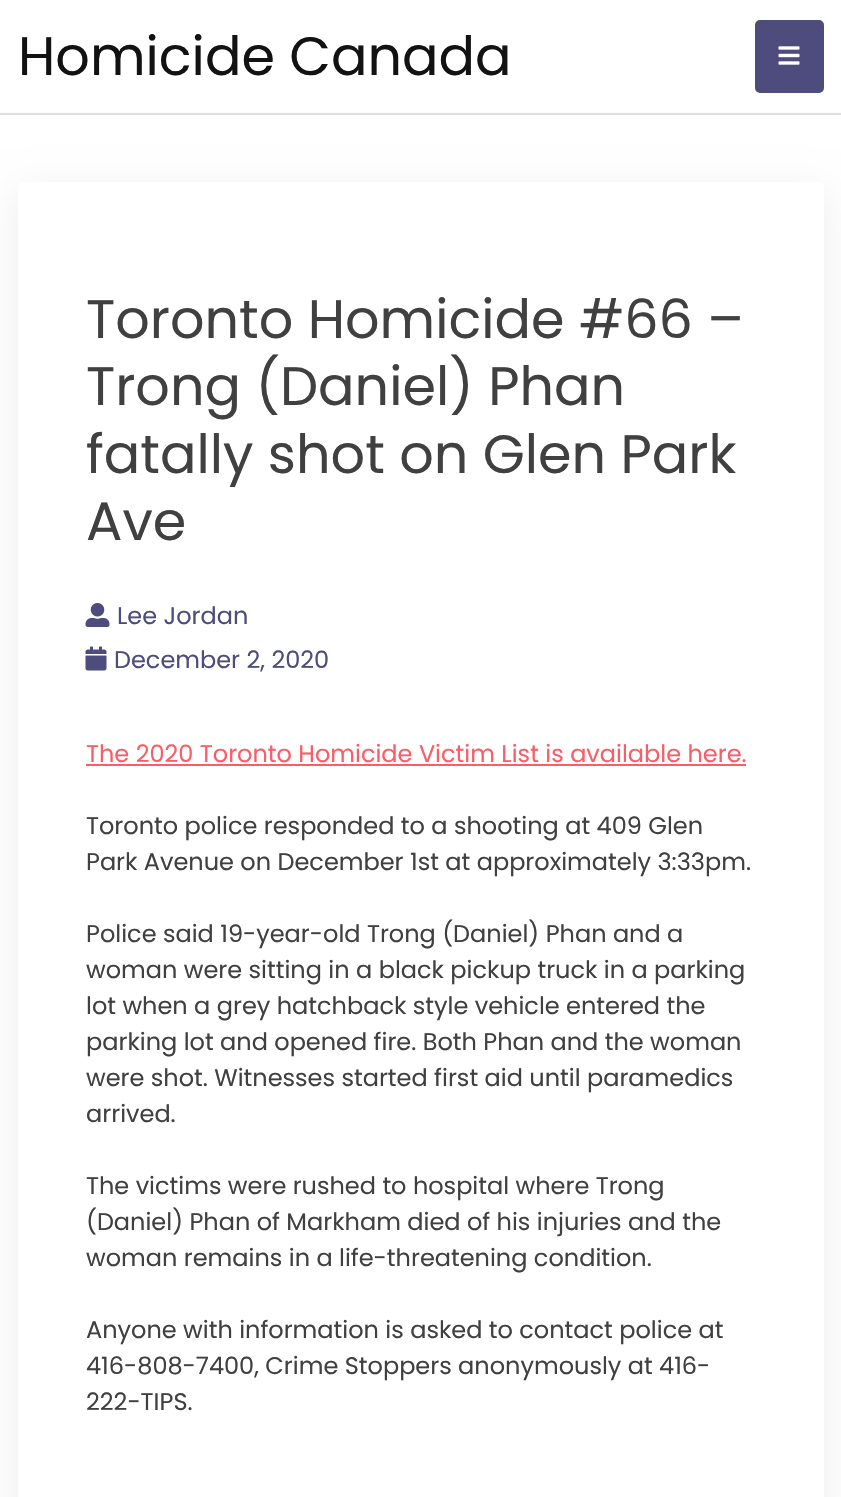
void draw(SkCanvas* canvas) {
    SkPaint paint;
    paint.setAntiAlias(true);
    auto face = [&](const char* family, int weight, float size, bool italic = false) {
        SkFontStyle style(weight, SkFontStyle::kNormal_Width,
            italic ? SkFontStyle::kItalic_Slant : SkFontStyle::kUpright_Slant);
        SkFont result(fontMgr->matchFamilyStyle(family, style), size);
        result.setSubpixel(true);
        return result;
    };
    auto write = [&](const char* s, float x, float y, const SkFont& font, SkColor color) {
        SkPaint ink(SkColor4f::FromColor(color));
        ink.setAntiAlias(true);
        canvas->drawString(s, x, y, font, ink);
    };
    auto block = [&](float x, float y, float w, float h, SkColor color) {
        SkPaint ink(SkColor4f::FromColor(color));
        ink.setAntiAlias(true);
        canvas->drawRect(SkRect::MakeXYWH(x, y, w, h), ink);
    };
    auto card = [&](float x, float y, float w, float h, float radius, SkColor color) {
        SkPaint ink(SkColor4f::FromColor(color));
        ink.setAntiAlias(true);
        canvas->drawRoundRect(SkRect::MakeXYWH(x, y, w, h), radius, radius, ink);
    };
    auto paste = [&](const char* path, float x, float y, float w, float h) {
        auto image = SkImages::DeferredFromEncodedData(SkData::MakeFromFileName(path));
        canvas->drawImageRect(image, SkRect::MakeXYWH(x, y, w, h), SkSamplingOptions());
    };
    canvas->clear(SK_ColorWHITE);
    block(0, 113, 841, 2, SkColorSetRGB(221, 221, 221));
    auto kFont1 = face("Poppins", 400, 54);
    write("Homicide Canada", 18, 75, kFont1, SkColorSetRGB(18, 18, 18));
    paint.setColor(SkColorSetRGB(77, 76, 125));
    canvas->drawRoundRect(SkRect::MakeXYWH(756, 21, 67, 71), 4, 4, paint);
    paint.setStyle(SkPaint::kStroke_Style);
    paint.setStrokeWidth(2);
    canvas->drawRoundRect(SkRect::MakeXYWH(756, 21, 67, 71), 4, 4, paint);
    paste("pic1.png", 778, 46, 22, 19);
    paint.setStyle(SkPaint::kFill_Style);
    paint.setColor(SkColorSetARGB(18, 0, 0, 0));
    paint.setMaskFilter(SkMaskFilter::MakeBlur(kNormal_SkBlurStyle, 19));
    canvas->drawRoundRect(SkRect::MakeXYWH(18, 191, 806, 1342), 5, 5, paint);
    paint.setMaskFilter(nullptr);
    card(18, 182, 806, 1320, 5, SK_ColorWHITE);
    write("Toronto Homicide #66 –", 86, 338, kFont1, SkColorSetRGB(64, 64, 64));
    write("Trong (Daniel) Phan", 86, 405, kFont1, SkColorSetRGB(64, 64, 64));
    write("fatally shot on Glen Park", 86, 473, kFont1, SkColorSetRGB(64, 64, 64));
    write("Ave", 86, 540, kFont1, SkColorSetRGB(64, 64, 64));
    paste("pic2.png", 85, 603, 25, 24);
    auto kFont2 = face("Poppins", 400, 24);
    write("Lee Jordan", 117, 624, kFont2, SkColorSetRGB(77, 76, 125));
    paste("pic3.png", 85, 646, 22, 25);
    write("December 2, 2020", 114, 668, kFont2, SkColorSetRGB(77, 76, 125));
    write("The 2020 Toronto Homicide Victim List is available here.", 86, 762, kFont2, SkColorSetRGB(252, 92, 101));
    block(86, 764, 660, 2, SkColorSetRGB(252, 92, 101));
    write("Toronto police responded to a shooting at 409 Glen", 86, 834, kFont2, SkColorSetRGB(64, 64, 64));
    write("Park Avenue on December 1st at approximately 3:33pm.", 86, 870, kFont2, SkColorSetRGB(64, 64, 64));
    write("Police said 19-year-old Trong (Daniel) Phan and a", 86, 942, kFont2, SkColorSetRGB(64, 64, 64));
    write("woman were sitting in a black pickup truck in a parking", 86, 978, kFont2, SkColorSetRGB(64, 64, 64));
    write("lot when a grey hatchback style vehicle entered the", 86, 1014, kFont2, SkColorSetRGB(64, 64, 64));
    write("parking lot and opened fire. Both Phan and the woman", 86, 1050, kFont2, SkColorSetRGB(64, 64, 64));
    write("were shot. Witnesses started first aid until paramedics", 86, 1086, kFont2, SkColorSetRGB(64, 64, 64));
    write("arrived.", 86, 1122, kFont2, SkColorSetRGB(64, 64, 64));
    write("The victims were rushed to hospital where Trong", 86, 1194, kFont2, SkColorSetRGB(64, 64, 64));
    write("(Daniel) Phan of Markham died of his injuries and the", 86, 1230, kFont2, SkColorSetRGB(64, 64, 64));
    write("woman remains in a life-threatening condition.", 86, 1266, kFont2, SkColorSetRGB(64, 64, 64));
    write("Anyone with information is asked to contact police at", 86, 1338, kFont2, SkColorSetRGB(64, 64, 64));
    write("416-808-7400, Crime Stoppers anonymously at 416-", 86, 1374, kFont2, SkColorSetRGB(64, 64, 64));
    write("222-TIPS.", 86, 1410, kFont2, SkColorSetRGB(64, 64, 64));
}
